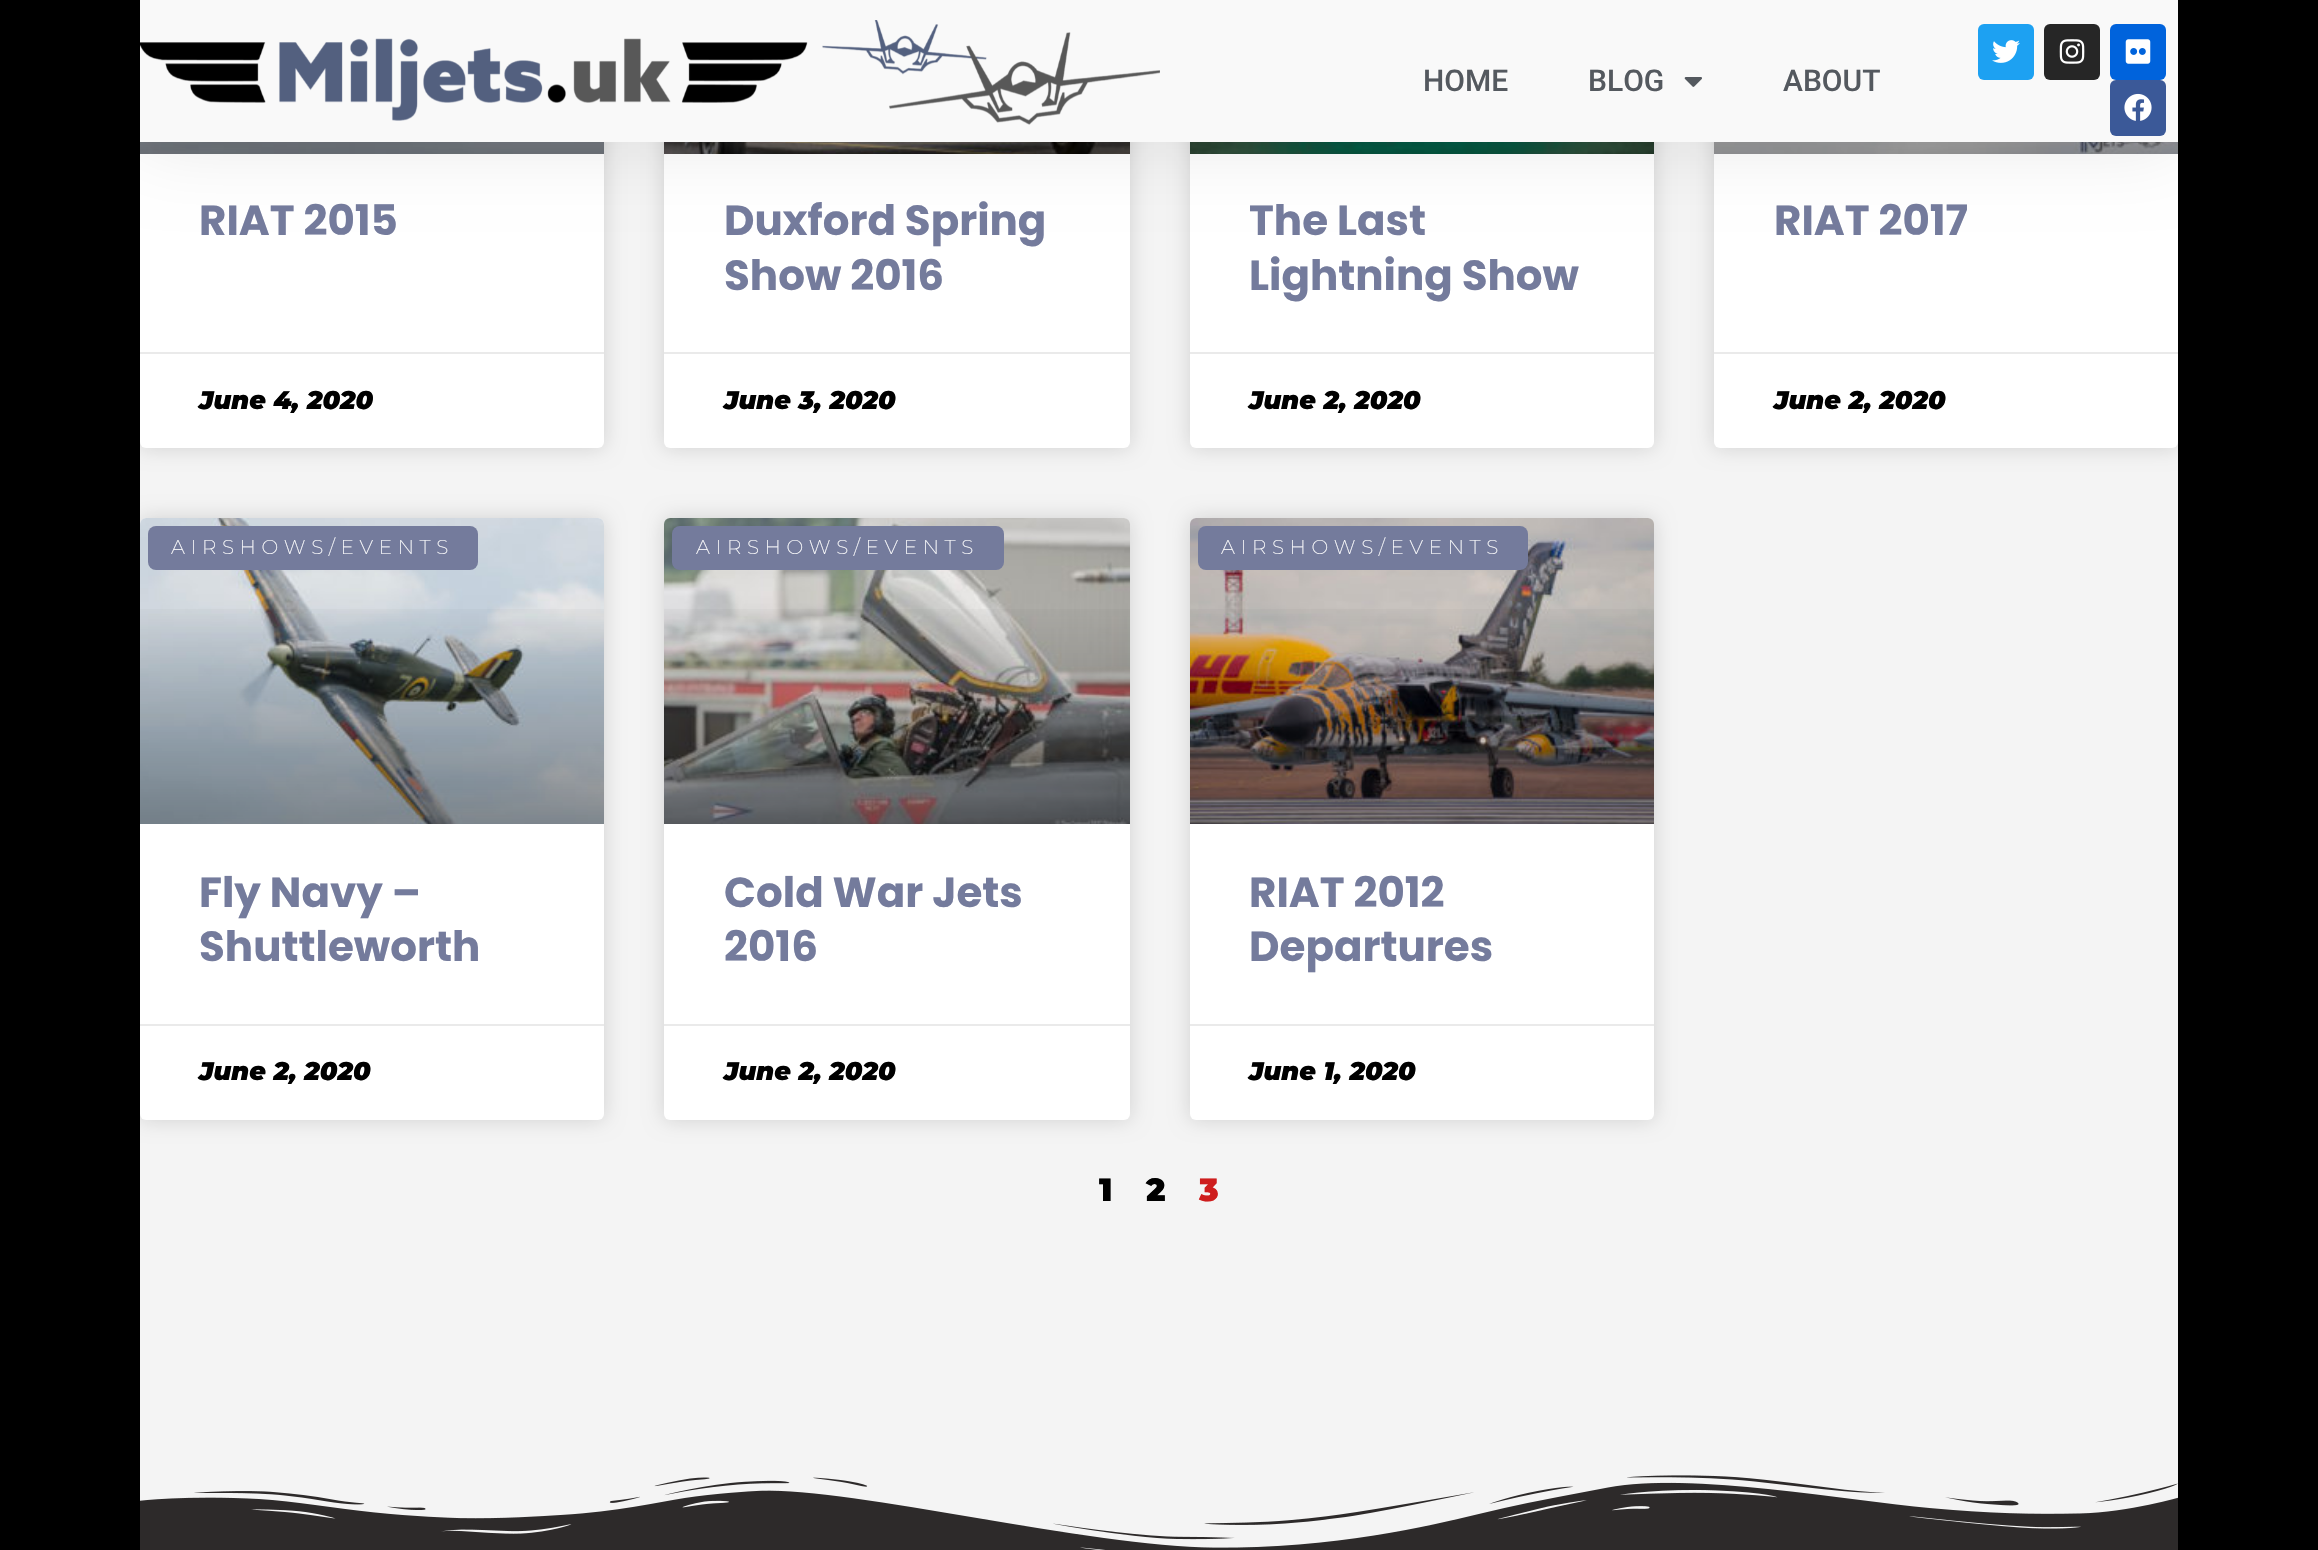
void draw(SkCanvas* canvas) {
    SkPaint paint;
    paint.setAntiAlias(true);
    auto face = [&](const char* family, int weight, float size, bool italic = false) {
        SkFontStyle style(weight, SkFontStyle::kNormal_Width,
            italic ? SkFontStyle::kItalic_Slant : SkFontStyle::kUpright_Slant);
        SkFont result(fontMgr->matchFamilyStyle(family, style), size);
        result.setSubpixel(true);
        return result;
    };
    auto write = [&](const char* s, float x, float y, const SkFont& font, SkColor color) {
        SkPaint ink(SkColor4f::FromColor(color));
        ink.setAntiAlias(true);
        canvas->drawString(s, x, y, font, ink);
    };
    auto writeSpaced = [&](const char* s, float x, float y, const SkFont& font, const SkPaint& ink, float letter, float word) {
        std::vector<SkGlyphID> glyphs(font.countText(s, strlen(s), SkTextEncoding::kUTF8));
        std::vector<float> xs(glyphs.size());
        font.textToGlyphs(s, strlen(s), SkTextEncoding::kUTF8, glyphs);
        font.getXPos(glyphs, xs, x);
        float extra = 0;
        for (size_t i = 0; i < glyphs.size(); i++) {
            xs[i] += extra;
            extra += letter + word * (glyphs[i] == font.unicharToGlyph(' '));
        }
        canvas->drawTextBlob(SkTextBlob::MakeFromPosHGlyphs(glyphs, xs, y, font), 0, 0, ink);
    };
    auto block = [&](float x, float y, float w, float h, SkColor color) {
        SkPaint ink(SkColor4f::FromColor(color));
        ink.setAntiAlias(true);
        canvas->drawRect(SkRect::MakeXYWH(x, y, w, h), ink);
    };
    auto card = [&](float x, float y, float w, float h, float radius, SkColor color) {
        SkPaint ink(SkColor4f::FromColor(color));
        ink.setAntiAlias(true);
        canvas->drawRoundRect(SkRect::MakeXYWH(x, y, w, h), radius, radius, ink);
    };
    auto paste = [&](const char* path, float x, float y, float w, float h) {
        auto image = SkImages::DeferredFromEncodedData(SkData::MakeFromFileName(path));
        canvas->drawImageRect(image, SkRect::MakeXYWH(x, y, w, h), SkSamplingOptions());
    };
    canvas->clear(SK_ColorBLACK);
    block(140, 142, 2038, 1322, SkColorSetRGB(244, 244, 244));
    paint.setColor(SkColorSetARGB(38, 0, 0, 0));
    paint.setMaskFilter(SkMaskFilter::MakeBlur(kNormal_SkBlurStyle, 10));
    canvas->drawRoundRect(SkRect::MakeXYWH(140, -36, 464, 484), 6, 6, paint);
    paint.setMaskFilter(nullptr);
    card(140, -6, 464, 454, 6, SK_ColorWHITE);
    paste("pic7.png", 140, 142, 464, 12);
    paint.setMaskFilter(SkMaskFilter::MakeBlur(kNormal_SkBlurStyle, 10));
    canvas->drawRoundRect(SkRect::MakeXYWH(664, -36, 466, 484), 6, 6, paint);
    paint.setMaskFilter(nullptr);
    card(664, -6, 466, 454, 6, SK_ColorWHITE);
    paste("pic8.png", 664, 142, 466, 12);
    paint.setMaskFilter(SkMaskFilter::MakeBlur(kNormal_SkBlurStyle, 10));
    canvas->drawRoundRect(SkRect::MakeXYWH(1190, -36, 464, 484), 6, 6, paint);
    paint.setMaskFilter(nullptr);
    card(1190, -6, 464, 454, 6, SK_ColorWHITE);
    paste("pic9.png", 1190, 142, 464, 12);
    paint.setMaskFilter(SkMaskFilter::MakeBlur(kNormal_SkBlurStyle, 10));
    canvas->drawRoundRect(SkRect::MakeXYWH(1714, -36, 464, 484), 6, 6, paint);
    paint.setMaskFilter(nullptr);
    card(1714, -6, 464, 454, 6, SK_ColorWHITE);
    paste("pic10.png", 1714, 142, 464, 12);
    paint.setColor(SkColorSetARGB(26, 0, 0, 0));
    paint.setMaskFilter(SkMaskFilter::MakeBlur(kNormal_SkBlurStyle, 38));
    canvas->drawRect(SkRect::MakeXYWH(140, 0, 2038, 142), paint);
    paint.setMaskFilter(nullptr);
    block(140, 0, 2038, 142, SkColorSetRGB(249, 249, 249));
    paste("pic1.png", 140, 20, 1020, 105);
    auto kFont1 = face("Roboto", 500, 30);
    write("HOME", 1423, 91, kFont1, SkColorSetRGB(84, 89, 95));
    write("BLOG", 1588, 91, kFont1, SkColorSetRGB(84, 89, 95));
    paste("pic2.png", 1684, 77, 18, 10);
    write("ABOUT", 1783, 91, kFont1, SkColorSetRGB(84, 89, 95));
    card(1978, 24, 56, 56, 6, SkColorSetRGB(29, 161, 242));
    paste("pic3.png", 1992, 40, 28, 23);
    card(2044, 24, 56, 56, 6, SkColorSetRGB(38, 38, 38));
    paste("pic4.png", 2059, 39, 26, 25);
    card(2110, 24, 56, 56, 6, SkColorSetRGB(0, 99, 220));
    paste("pic5.png", 2125, 39, 26, 25);
    card(2110, 80, 56, 56, 6, SkColorSetRGB(59, 89, 152));
    paste("pic6.png", 2124, 93, 28, 28);
    auto kFont2 = face("Poppins", 700, 42);
    write("RIAT 2015", 199, 235, kFont2, SkColorSetRGB(116, 123, 156));
    block(140, 352, 464, 2, SkColorSetRGB(234, 234, 234));
    auto kFont3 = face("Montserrat", 100, 25.5f, true);
    write("June 4, 2020", 199, 409, kFont3, SK_ColorBLACK);
    write("Duxford Spring", 724, 235, kFont2, SkColorSetRGB(116, 123, 156));
    write("Show 2016", 724, 290, kFont2, SkColorSetRGB(116, 123, 156));
    block(664, 352, 466, 2, SkColorSetRGB(234, 234, 234));
    write("June 3, 2020", 724, 409, kFont3, SK_ColorBLACK);
    write("The Last", 1249, 235, kFont2, SkColorSetRGB(116, 123, 156));
    write("Lightning Show", 1249, 290, kFont2, SkColorSetRGB(116, 123, 156));
    block(1190, 352, 464, 2, SkColorSetRGB(234, 234, 234));
    write("June 2, 2020", 1249, 409, kFont3, SK_ColorBLACK);
    write("RIAT 2017", 1774, 235, kFont2, SkColorSetRGB(116, 123, 156));
    block(1714, 352, 464, 2, SkColorSetRGB(234, 234, 234));
    write("June 2, 2020", 1774, 409, kFont3, SK_ColorBLACK);
    paint.setColor(SkColorSetARGB(38, 0, 0, 0));
    paint.setMaskFilter(SkMaskFilter::MakeBlur(kNormal_SkBlurStyle, 10));
    canvas->drawRoundRect(SkRect::MakeXYWH(140, 518, 464, 602), 6, 6, paint);
    paint.setMaskFilter(nullptr);
    card(140, 518, 464, 602, 6, SK_ColorWHITE);
    paste("pic11.png", 140, 518, 464, 306);
    {
        const SkColor colors[] = {SkColorSetARGB(89, 0, 0, 0), SkColorSetARGB(0, 0, 0, 0)};
        const float stops[] = {0, 0.75f};
        const SkPoint ends[] = {{372, 824}, {372, 518}};
        paint.setShader(SkGradientShader::MakeLinear(ends, colors, stops, 2, SkTileMode::kClamp));
        paint.setAlpha(255);
    }
    canvas->drawRect(SkRect::MakeXYWH(140, 609, 464, 215), paint);
    card(148, 526, 330, 44, 8, SkColorSetRGB(116, 123, 156));
    auto kFont4 = face("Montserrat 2", 100, 20);
    paint.setShader(nullptr);
    paint.setColor(SK_ColorWHITE);
    writeSpaced("AIRSHOWS/EVENTS", 171, 554, kFont4, paint, 5.6f, 0);
    write("Fly Navy –", 199, 907, kFont2, SkColorSetRGB(116, 123, 156));
    write("Shuttleworth", 199, 961, kFont2, SkColorSetRGB(116, 123, 156));
    block(140, 1024, 464, 2, SkColorSetRGB(234, 234, 234));
    write("June 2, 2020", 199, 1080, kFont3, SK_ColorBLACK);
    paint.setColor(SkColorSetARGB(38, 0, 0, 0));
    paint.setMaskFilter(SkMaskFilter::MakeBlur(kNormal_SkBlurStyle, 10));
    canvas->drawRoundRect(SkRect::MakeXYWH(664, 518, 466, 602), 6, 6, paint);
    paint.setMaskFilter(nullptr);
    card(664, 518, 466, 602, 6, SK_ColorWHITE);
    paste("pic12.png", 664, 518, 466, 306);
    {
        const SkColor colors[] = {SkColorSetARGB(89, 0, 0, 0), SkColorSetARGB(0, 0, 0, 0)};
        const float stops[] = {0, 0.75f};
        const SkPoint ends[] = {{897, 824}, {897, 518}};
        paint.setShader(SkGradientShader::MakeLinear(ends, colors, stops, 2, SkTileMode::kClamp));
        paint.setAlpha(255);
    }
    canvas->drawRect(SkRect::MakeXYWH(664, 609, 466, 215), paint);
    card(672, 526, 332, 44, 8, SkColorSetRGB(116, 123, 156));
    paint.setShader(nullptr);
    paint.setColor(SK_ColorWHITE);
    writeSpaced("AIRSHOWS/EVENTS", 696, 554, kFont4, paint, 5.6f, 0);
    write("Cold War Jets", 724, 907, kFont2, SkColorSetRGB(116, 123, 156));
    write("2016", 724, 961, kFont2, SkColorSetRGB(116, 123, 156));
    block(664, 1024, 466, 2, SkColorSetRGB(234, 234, 234));
    write("June 2, 2020", 724, 1080, kFont3, SK_ColorBLACK);
    paint.setColor(SkColorSetARGB(38, 0, 0, 0));
    paint.setMaskFilter(SkMaskFilter::MakeBlur(kNormal_SkBlurStyle, 10));
    canvas->drawRoundRect(SkRect::MakeXYWH(1190, 518, 464, 602), 6, 6, paint);
    paint.setMaskFilter(nullptr);
    card(1190, 518, 464, 602, 6, SK_ColorWHITE);
    paste("pic13.png", 1190, 518, 464, 306);
    {
        const SkColor colors[] = {SkColorSetARGB(89, 0, 0, 0), SkColorSetARGB(0, 0, 0, 0)};
        const float stops[] = {0, 0.75f};
        const SkPoint ends[] = {{1422, 824}, {1422, 518}};
        paint.setShader(SkGradientShader::MakeLinear(ends, colors, stops, 2, SkTileMode::kClamp));
        paint.setAlpha(255);
    }
    canvas->drawRect(SkRect::MakeXYWH(1190, 609, 464, 215), paint);
    card(1198, 526, 330, 44, 8, SkColorSetRGB(116, 123, 156));
    paint.setShader(nullptr);
    paint.setColor(SK_ColorWHITE);
    writeSpaced("AIRSHOWS/EVENTS", 1221, 554, kFont4, paint, 5.6f, 0);
    write("RIAT 2012", 1249, 907, kFont2, SkColorSetRGB(116, 123, 156));
    write("Departures", 1249, 961, kFont2, SkColorSetRGB(116, 123, 156));
    block(1190, 1024, 464, 2, SkColorSetRGB(234, 234, 234));
    write("June 1, 2020", 1249, 1080, kFont3, SK_ColorBLACK);
    auto kFont5 = face("Montserrat", 100, 32);
    write("1", 1099, 1201, kFont5, SK_ColorBLACK);
    write("2", 1146, 1201, kFont5, SK_ColorBLACK);
    write("3", 1199, 1201, kFont5, SkColorSetRGB(206, 29, 29));
    block(140, 1475, 2038, 75, SkColorSetRGB(45, 42, 42));
    paste("pic14.png", 140, 1464, 2038, 86);
}
